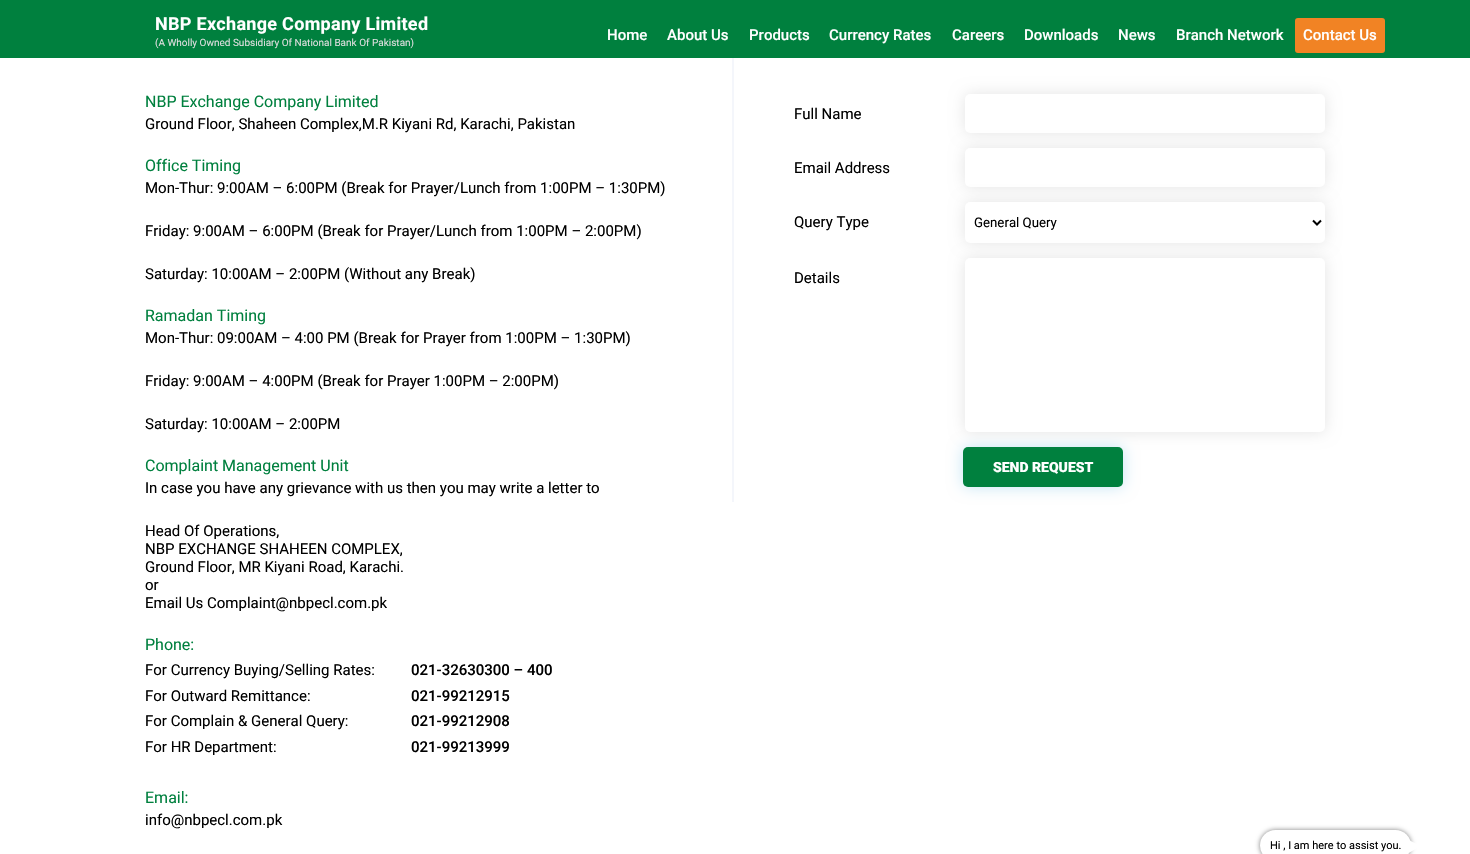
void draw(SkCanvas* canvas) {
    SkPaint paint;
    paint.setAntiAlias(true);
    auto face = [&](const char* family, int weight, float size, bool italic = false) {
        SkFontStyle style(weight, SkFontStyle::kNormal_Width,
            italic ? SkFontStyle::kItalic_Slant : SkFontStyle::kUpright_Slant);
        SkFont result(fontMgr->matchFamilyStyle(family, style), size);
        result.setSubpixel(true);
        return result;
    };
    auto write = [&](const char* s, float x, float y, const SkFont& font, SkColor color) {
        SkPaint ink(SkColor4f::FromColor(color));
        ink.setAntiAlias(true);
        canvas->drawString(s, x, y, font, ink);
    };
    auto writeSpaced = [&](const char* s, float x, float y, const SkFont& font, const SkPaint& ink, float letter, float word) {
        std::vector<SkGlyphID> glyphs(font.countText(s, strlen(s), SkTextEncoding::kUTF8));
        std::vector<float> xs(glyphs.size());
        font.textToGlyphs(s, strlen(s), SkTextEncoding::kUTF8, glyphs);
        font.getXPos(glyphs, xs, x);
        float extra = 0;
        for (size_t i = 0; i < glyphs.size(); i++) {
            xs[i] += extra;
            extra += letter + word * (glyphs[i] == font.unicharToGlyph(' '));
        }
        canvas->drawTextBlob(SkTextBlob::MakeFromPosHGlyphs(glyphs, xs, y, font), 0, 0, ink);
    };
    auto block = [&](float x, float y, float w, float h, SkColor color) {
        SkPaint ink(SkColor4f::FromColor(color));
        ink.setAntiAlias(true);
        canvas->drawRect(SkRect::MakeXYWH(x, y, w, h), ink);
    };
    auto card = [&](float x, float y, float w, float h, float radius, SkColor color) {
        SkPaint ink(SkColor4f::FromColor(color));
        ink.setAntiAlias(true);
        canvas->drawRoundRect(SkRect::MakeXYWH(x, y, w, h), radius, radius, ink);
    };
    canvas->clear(SK_ColorWHITE);
    block(0, 0, 1470, 58, SkColorSetRGB(0, 128, 62));
    auto kFont1 = face("Roboto", 700, 18);
    paint.setColor(SK_ColorWHITE);
    writeSpaced("NBP Exchange Company Limited", 155, 30, kFont1, paint, 0.3f, 0);
    auto kFont2 = face("Roboto", 400, 10);
    write("(A Wholly Owned Subsidiary Of National Bank Of Pakistan)", 155, 46, kFont2, SkColorSetRGB(223, 223, 223));
    auto kFont3 = face("Roboto", 500, 15);
    write("Home", 607, 40, kFont3, SK_ColorWHITE);
    write("About Us", 667, 40, kFont3, SK_ColorWHITE);
    write("Products", 749, 40, kFont3, SK_ColorWHITE);
    write("Currency Rates", 829, 40, kFont3, SK_ColorWHITE);
    write("Careers", 952, 40, kFont3, SK_ColorWHITE);
    write("Downloads", 1024, 40, kFont3, SK_ColorWHITE);
    write("News", 1118, 40, kFont3, SK_ColorWHITE);
    write("Branch Network", 1176, 40, kFont3, SK_ColorWHITE);
    card(1295, 18, 90, 35, 3, SkColorSetRGB(241, 131, 36));
    write("Contact Us", 1303, 40, kFont3, SK_ColorWHITE);
    auto kFont4 = face("Roboto", 400, 16);
    write("NBP Exchange Company Limited", 145, 107, kFont4, SkColorSetRGB(0, 128, 62));
    auto kFont5 = face("Roboto", 400, 15);
    write("Ground Floor, Shaheen Complex,M.R Kiyani Rd, Karachi, Pakistan", 145, 129, kFont5, SK_ColorBLACK);
    write("Office Timing", 145, 171, kFont4, SkColorSetRGB(0, 128, 62));
    write("Mon-Thur: 9:00AM – 6:00PM (Break for Prayer/Lunch from 1:00PM – 1:30PM)", 145, 193, kFont5, SK_ColorBLACK);
    write("Friday: 9:00AM – 6:00PM (Break for Prayer/Lunch from 1:00PM – 2:00PM)", 145, 236, kFont5, SK_ColorBLACK);
    write("Saturday: 10:00AM – 2:00PM (Without any Break)", 145, 279, kFont5, SK_ColorBLACK);
    write("Ramadan Timing", 145, 321, kFont4, SkColorSetRGB(0, 128, 62));
    write("Mon-Thur: 09:00AM – 4:00 PM (Break for Prayer from 1:00PM – 1:30PM)", 145, 343, kFont5, SK_ColorBLACK);
    write("Friday: 9:00AM – 4:00PM (Break for Prayer 1:00PM – 2:00PM)", 145, 386, kFont5, SK_ColorBLACK);
    write("Saturday: 10:00AM – 2:00PM", 145, 429, kFont5, SK_ColorBLACK);
    write("Complaint Management Unit", 145, 471, kFont4, SkColorSetRGB(0, 128, 62));
    write("In case you have any grievance with us then you may write a letter to", 145, 493, kFont5, SK_ColorBLACK);
    write("Head Of Operations,", 145, 536, kFont5, SK_ColorBLACK);
    write("NBP EXCHANGE SHAHEEN COMPLEX,", 145, 554, kFont5, SK_ColorBLACK);
    write("Ground Floor, MR Kiyani Road, Karachi.", 145, 572, kFont5, SK_ColorBLACK);
    write("or", 145, 590, kFont5, SK_ColorBLACK);
    write("Email Us Complaint@nbpecl.com.pk", 145, 608, kFont5, SK_ColorBLACK);
    write("Phone:", 145, 650, kFont4, SkColorSetRGB(0, 128, 62));
    write("For Currency Buying/Selling Rates:", 145, 675, kFont5, SK_ColorBLACK);
    write("021-32630300 – 400", 411, 675, kFont3, SK_ColorBLACK);
    write("For Outward Remittance:", 145, 701, kFont5, SK_ColorBLACK);
    write("021-99212915", 411, 701, kFont3, SK_ColorBLACK);
    write("For Complain & General Query:", 145, 726, kFont5, SK_ColorBLACK);
    write("021-99212908", 411, 726, kFont3, SK_ColorBLACK);
    write("For HR Department:", 145, 752, kFont5, SK_ColorBLACK);
    write("021-99213999", 411, 752, kFont3, SK_ColorBLACK);
    write("Email:", 145, 803, kFont4, SkColorSetRGB(0, 128, 62));
    write("info@nbpecl.com.pk", 145, 825, kFont5, SK_ColorBLACK);
    block(732, 58, 2, 444, SkColorSetRGB(244, 246, 251));
    write("Full Name", 794, 119, kFont5, SK_ColorBLACK);
    paint.setColor(SkColorSetRGB(228, 228, 228));
    paint.setMaskFilter(SkMaskFilter::MakeBlur(kNormal_SkBlurStyle, 7.5f));
    canvas->drawRoundRect(SkRect::MakeXYWH(965, 94, 360, 39), 5, 5, paint);
    paint.setMaskFilter(nullptr);
    card(965, 94, 360, 39, 5, SK_ColorWHITE);
    write("Email Address", 794, 173, kFont5, SK_ColorBLACK);
    paint.setMaskFilter(SkMaskFilter::MakeBlur(kNormal_SkBlurStyle, 7.5f));
    canvas->drawRoundRect(SkRect::MakeXYWH(965, 148, 360, 39), 5, 5, paint);
    paint.setMaskFilter(nullptr);
    card(965, 148, 360, 39, 5, SK_ColorWHITE);
    write("Query Type", 794, 227, kFont5, SK_ColorBLACK);
    paint.setMaskFilter(SkMaskFilter::MakeBlur(kNormal_SkBlurStyle, 7.5f));
    canvas->drawRoundRect(SkRect::MakeXYWH(965, 202, 360, 41), 5, 5, paint);
    paint.setMaskFilter(nullptr);
    card(965, 202, 360, 41, 5, SK_ColorWHITE);
    paint.setStyle(SkPaint::kStroke_Style);
    paint.setStrokeWidth(2);
    paint.setColor(SK_ColorBLACK);
    canvas->drawPath(SkPathBuilder().moveTo(1313, 220.5f).lineTo(1317, 224.5f).lineTo(1321, 220.5f).detach(), paint);
    auto kFont6 = face("Roboto", 400, 13.25f);
    write("General Query", 974, 227, kFont6, SK_ColorBLACK);
    write("Details", 794, 283, kFont5, SK_ColorBLACK);
    paint.setStyle(SkPaint::kFill_Style);
    paint.setColor(SkColorSetRGB(196, 229, 244));
    paint.setMaskFilter(SkMaskFilter::MakeBlur(kNormal_SkBlurStyle, 7.5f));
    canvas->drawRoundRect(SkRect::MakeXYWH(963, 447, 160, 40), 5, 5, paint);
    paint.setMaskFilter(nullptr);
    card(963, 447, 160, 40, 5, SkColorSetRGB(0, 128, 62));
    paint.setColor(SkColorSetRGB(228, 228, 228));
    paint.setMaskFilter(SkMaskFilter::MakeBlur(kNormal_SkBlurStyle, 7.5f));
    canvas->drawRoundRect(SkRect::MakeXYWH(965, 258, 360, 174), 5, 5, paint);
    paint.setMaskFilter(nullptr);
    card(965, 258, 360, 174, 5, SK_ColorWHITE);
    auto kFont7 = face("Roboto", 900, 14);
    write("SEND REQUEST", 993, 472, kFont7, SK_ColorWHITE);
    paint.setColor(SkColorSetRGB(128, 128, 128));
    paint.setMaskFilter(SkMaskFilter::MakeBlur(kNormal_SkBlurStyle, 2.5f));
    canvas->drawRoundRect(SkRect::MakeXYWH(1260, 830, 151, 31), 15.5f, 15.5f, paint);
    paint.setMaskFilter(nullptr);
    card(1260, 830, 151, 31, 15.5f, SK_ColorWHITE);
    auto kFont8 = face("Roboto", 400, 11);
    write("Hi , I am here to assist you.", 1270, 849, kFont8, SK_ColorBLACK);
    paint.setColor(SK_ColorWHITE);
    canvas->drawPath(SkPathBuilder().moveTo(1408.5f, 853).lineTo(1408.5f, 840).lineTo(1421.5f, 846).close().detach(), paint);
}
